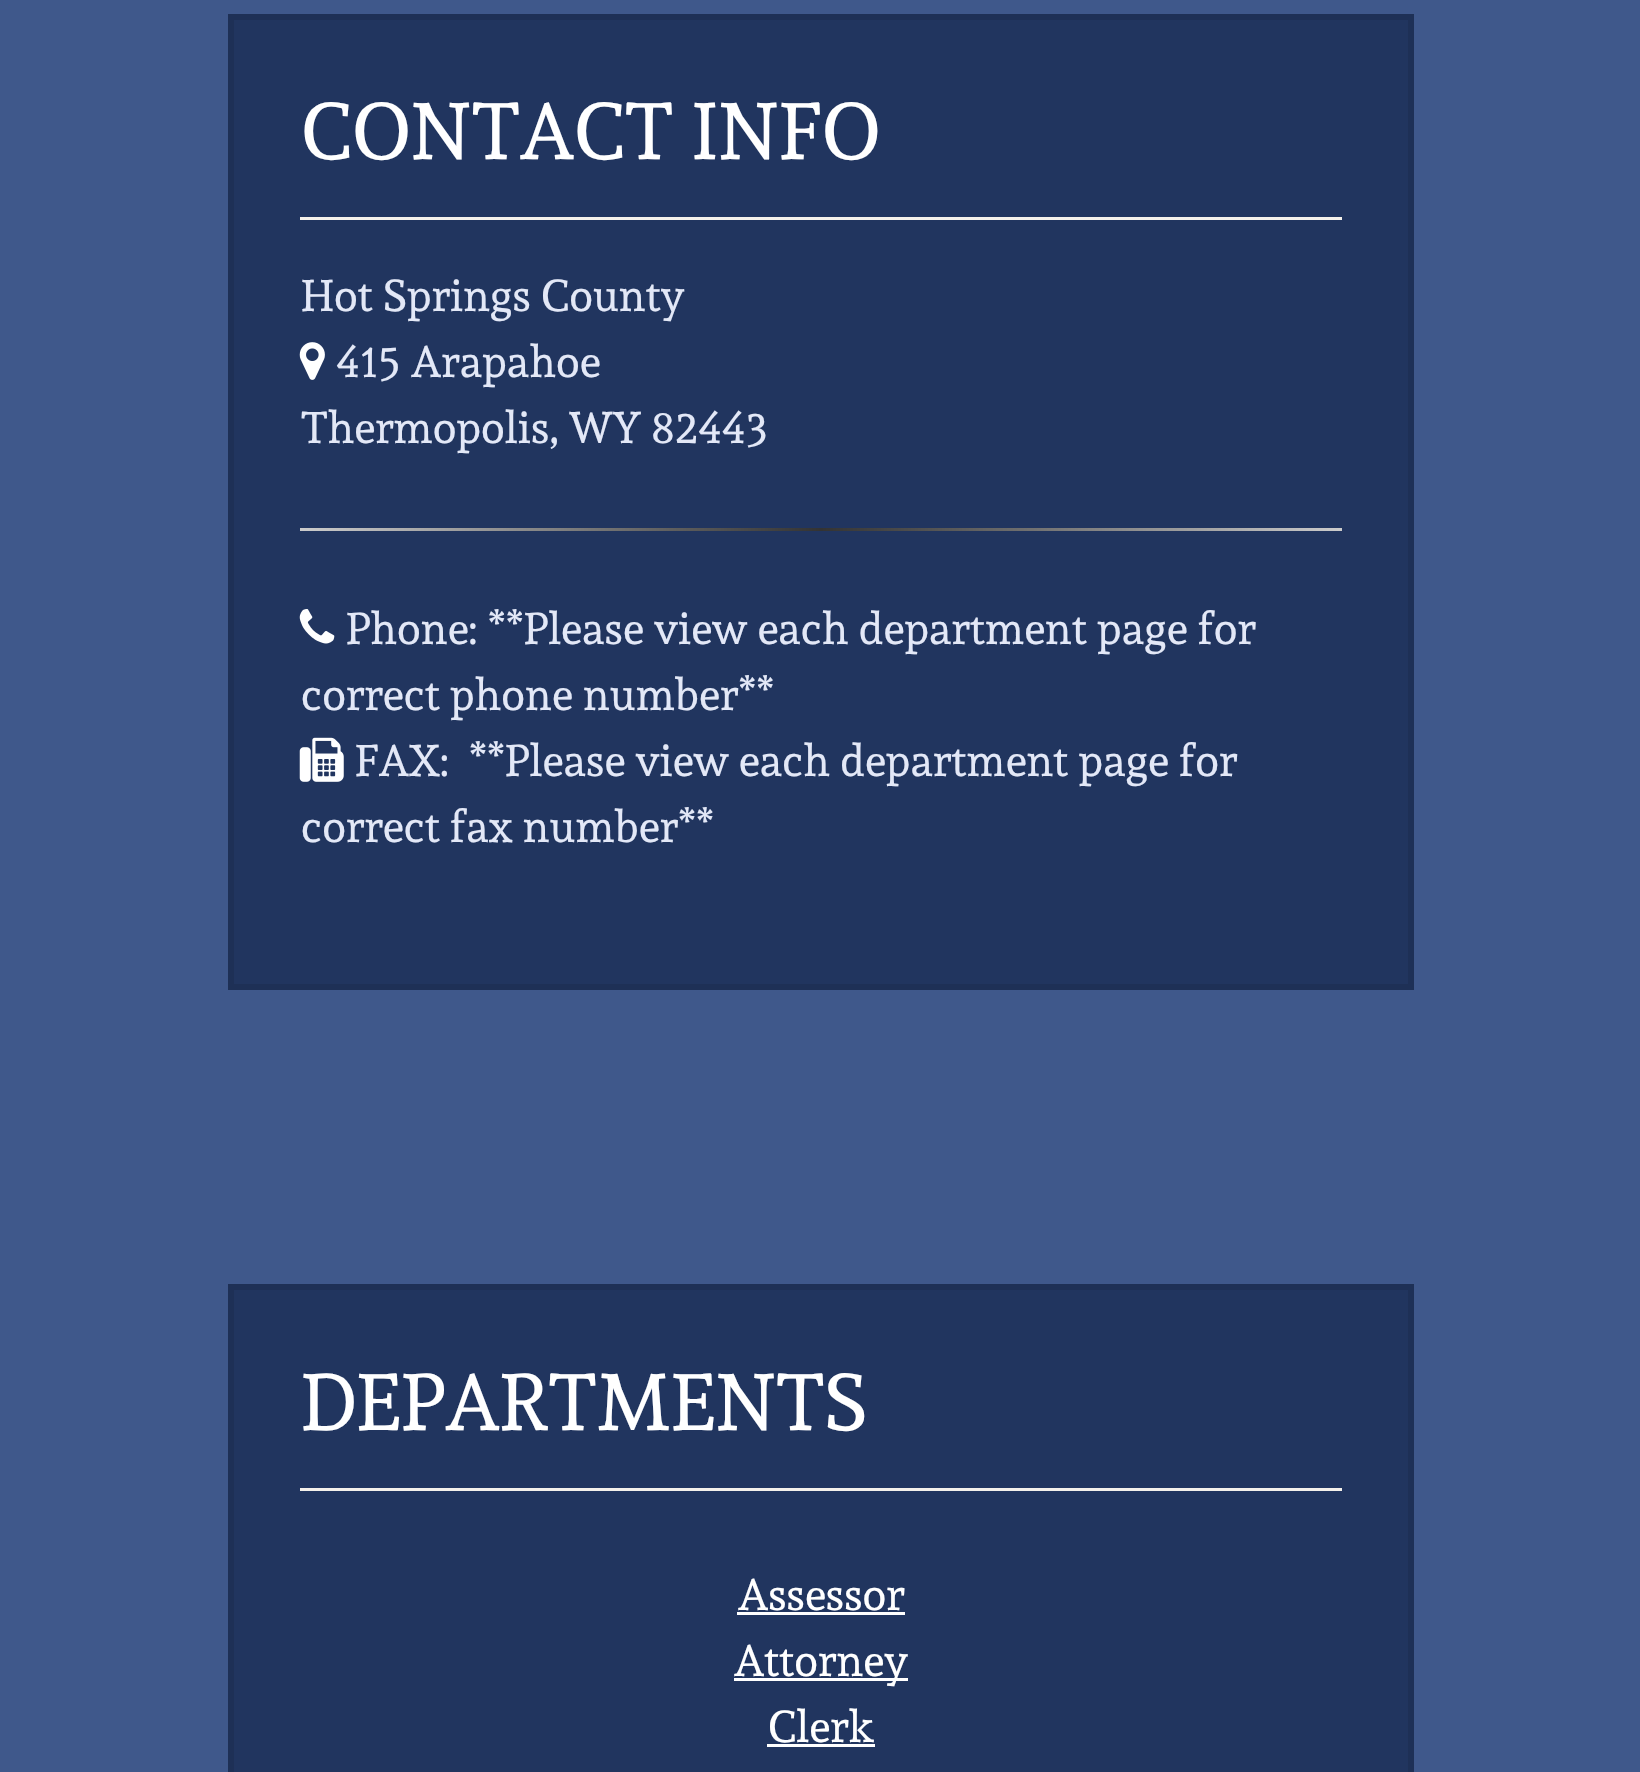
void draw(SkCanvas* canvas) {
    SkPaint paint;
    paint.setAntiAlias(true);
    auto face = [&](const char* family, int weight, float size, bool italic = false) {
        SkFontStyle style(weight, SkFontStyle::kNormal_Width,
            italic ? SkFontStyle::kItalic_Slant : SkFontStyle::kUpright_Slant);
        SkFont result(fontMgr->matchFamilyStyle(family, style), size);
        result.setSubpixel(true);
        return result;
    };
    auto write = [&](const char* s, float x, float y, const SkFont& font, SkColor color) {
        SkPaint ink(SkColor4f::FromColor(color));
        ink.setAntiAlias(true);
        canvas->drawString(s, x, y, font, ink);
    };
    auto block = [&](float x, float y, float w, float h, SkColor color) {
        SkPaint ink(SkColor4f::FromColor(color));
        ink.setAntiAlias(true);
        canvas->drawRect(SkRect::MakeXYWH(x, y, w, h), ink);
    };
    auto paste = [&](const char* path, float x, float y, float w, float h) {
        auto image = SkImages::DeferredFromEncodedData(SkData::MakeFromFileName(path));
        canvas->drawImageRect(image, SkRect::MakeXYWH(x, y, w, h), SkSamplingOptions());
    };
    canvas->clear(SkColorSetRGB(63, 88, 139));
    paint.setColor(SkColorSetRGB(33, 53, 95));
    canvas->drawRect(SkRect::MakeXYWH(231, 17, 1180, 970), paint);
    paint.setStyle(SkPaint::kStroke_Style);
    paint.setStrokeWidth(6);
    paint.setColor(SkColorSetRGB(30, 48, 86));
    canvas->drawRect(SkRect::MakeXYWH(231, 17, 1180, 970), paint);
    block(300, 217, 1042, 3, SkColorSetRGB(245, 241, 235));
    auto kFont1 = face("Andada", 400, 79.25f);
    write("CONTACT INFO", 301, 159, kFont1, SK_ColorWHITE);
    auto kFont2 = face("Andada", 400, 44);
    write("Hot Springs County", 301, 311, kFont2, SkColorSetRGB(227, 232, 247));
    paste("pic1.png", 299, 342, 26, 38);
    write("415 Arapahoe", 336, 377, kFont2, SkColorSetRGB(227, 232, 247));
    write("Thermopolis, WY 82443", 301, 443, kFont2, SkColorSetRGB(227, 232, 247));
    paint.setStyle(SkPaint::kFill_Style);
    {
        const SkColor colors[] = {SkColorSetRGB(204, 204, 204), SkColorSetRGB(51, 51, 51), SkColorSetRGB(204, 204, 204)};
        const float stops[] = {0, 0.5f, 1};
        const SkPoint ends[] = {{300, 529}, {1342, 529}};
        paint.setShader(SkGradientShader::MakeLinear(ends, colors, stops, 3, SkTileMode::kClamp));
        paint.setAlpha(255);
    }
    canvas->drawRect(SkRect::MakeXYWH(300, 528, 1042, 3), paint);
    paste("pic2.png", 299, 609, 36, 35);
    write("Phone: **Please view each department page for", 346, 644, kFont2, SkColorSetRGB(227, 232, 247));
    write("correct phone number**", 301, 710, kFont2, SkColorSetRGB(227, 232, 247));
    paste("pic3.png", 299, 737, 45, 45);
    write("FAX:  **Please view each department page for", 355, 776, kFont2, SkColorSetRGB(227, 232, 247));
    write("correct fax number**", 301, 842, kFont2, SkColorSetRGB(227, 232, 247));
    paint.setShader(nullptr);
    paint.setColor(SkColorSetRGB(33, 53, 95));
    canvas->drawRect(SkRect::MakeXYWH(231, 1287, 1180, 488), paint);
    paint.setStyle(SkPaint::kStroke_Style);
    paint.setColor(SkColorSetRGB(30, 48, 86));
    canvas->drawRect(SkRect::MakeXYWH(231, 1287, 1180, 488), paint);
    block(300, 1488, 1042, 3, SkColorSetRGB(245, 241, 235));
    write("DEPARTMENTS", 301, 1430, kFont1, SK_ColorWHITE);
    write("Assessor", 738, 1610, kFont2, SK_ColorWHITE);
    block(737, 1612, 168, 3, SK_ColorWHITE);
    block(734, 1678, 174, 3, SK_ColorWHITE);
    write("Attorney", 734, 1676, kFont2, SK_ColorWHITE);
    write("Clerk", 768, 1742, kFont2, SK_ColorWHITE);
    block(767, 1744, 108, 3, SK_ColorWHITE);
}
